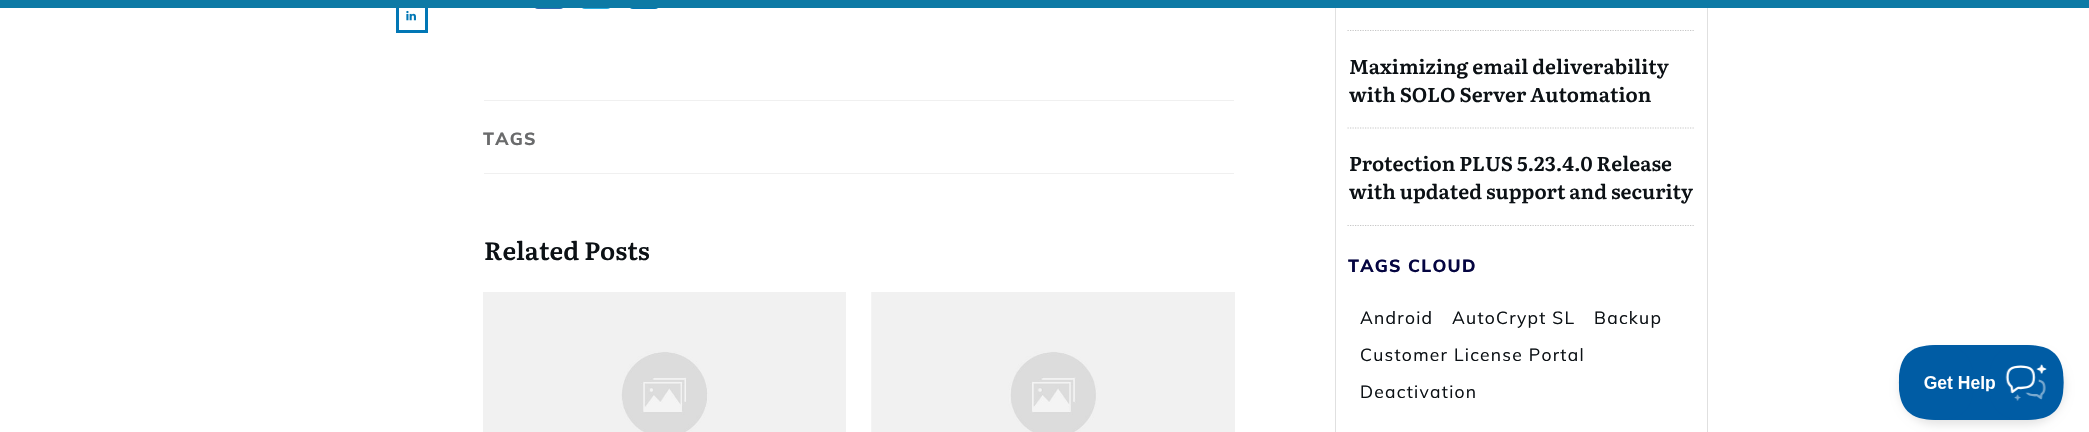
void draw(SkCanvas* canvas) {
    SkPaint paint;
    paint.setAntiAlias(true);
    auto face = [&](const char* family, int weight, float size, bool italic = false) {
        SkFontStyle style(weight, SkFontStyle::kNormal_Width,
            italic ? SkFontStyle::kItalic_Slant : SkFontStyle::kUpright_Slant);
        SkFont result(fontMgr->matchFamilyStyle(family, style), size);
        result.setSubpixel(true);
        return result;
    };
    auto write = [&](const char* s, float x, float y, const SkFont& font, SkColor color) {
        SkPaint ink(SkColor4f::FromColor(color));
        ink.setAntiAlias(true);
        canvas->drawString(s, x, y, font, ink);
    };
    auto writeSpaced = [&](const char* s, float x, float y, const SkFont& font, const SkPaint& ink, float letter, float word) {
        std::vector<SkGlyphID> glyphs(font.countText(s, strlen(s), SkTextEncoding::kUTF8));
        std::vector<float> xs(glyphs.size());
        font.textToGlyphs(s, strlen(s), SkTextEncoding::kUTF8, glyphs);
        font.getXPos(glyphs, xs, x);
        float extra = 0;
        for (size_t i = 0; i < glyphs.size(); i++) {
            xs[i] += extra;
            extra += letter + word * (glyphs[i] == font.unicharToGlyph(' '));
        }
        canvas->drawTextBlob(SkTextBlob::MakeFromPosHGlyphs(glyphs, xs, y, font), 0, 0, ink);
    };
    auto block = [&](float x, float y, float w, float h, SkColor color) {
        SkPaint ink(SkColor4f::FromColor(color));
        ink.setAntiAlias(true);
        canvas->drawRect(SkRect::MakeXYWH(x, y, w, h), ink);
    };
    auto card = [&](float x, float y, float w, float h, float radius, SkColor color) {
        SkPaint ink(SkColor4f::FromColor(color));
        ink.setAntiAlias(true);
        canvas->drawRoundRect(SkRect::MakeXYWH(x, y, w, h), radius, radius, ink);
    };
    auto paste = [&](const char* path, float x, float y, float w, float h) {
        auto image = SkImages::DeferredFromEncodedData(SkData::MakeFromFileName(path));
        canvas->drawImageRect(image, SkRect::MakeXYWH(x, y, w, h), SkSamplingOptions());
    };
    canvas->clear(SK_ColorWHITE);
    paint.setStyle(SkPaint::kStroke_Style);
    paint.setStrokeWidth(3);
    paint.setColor(SkColorSetRGB(1, 119, 181));
    canvas->drawRect(SkRect::MakeXYWH(397.5f, 1.5f, 29, 30), paint);
    card(534, -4, 30, 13, 4, SkColorSetRGB(53, 105, 180));
    card(581, -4, 30, 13, 4, SkColorSetRGB(41, 172, 224));
    card(629, -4, 30, 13, 4, SkColorSetRGB(1, 119, 181));
    paint.setStrokeWidth(1);
    paint.setColor(SkColorSetRGB(224, 224, 224));
    canvas->drawRect(SkRect::MakeXYWH(1335.5f, -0.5f, 372, 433), paint);
    block(0, 0, 2089, 8, SkColorSetRGB(13, 122, 165));
    paste("pic1.png", 406, 10, 10, 11);
    block(484, 100, 750, 1, SkColorSetRGB(240, 240, 240));
    auto kFont1 = face("Muli", 800, 17.5f);
    paint.setStyle(SkPaint::kFill_Style);
    paint.setColor(SkColorSetRGB(106, 107, 108));
    writeSpaced("TAGS", 483, 145, kFont1, paint, 1.25f, 0);
    block(484, 173, 750, 1, SkColorSetRGB(240, 240, 240));
    auto kFont2 = face("Literata", 600, 25);
    write("Related Posts", 484, 260, kFont2, SkColorSetRGB(12, 17, 21));
    paste("pic2.png", 483, 292, 363, 140);
    paste("pic3.png", 871, 292, 364, 140);
    paint.setStyle(SkPaint::kStroke_Style);
    paint.setStrokeWidth(1.2f);
    paint.setColor(SkColorSetRGB(199, 199, 199));
    paint.setPathEffect(SkDashPathEffect::Make({{1.25f, 1.25f}}, 0));
    canvas->drawPath(SkPathBuilder().moveTo(1347.5f, 30.5f).lineTo(1695, 30.5f).detach(), paint);
    paint.setPathEffect(nullptr);
    paint.setPathEffect(SkDashPathEffect::Make({{1.25f, 1.25f}}, 0));
    canvas->drawPath(SkPathBuilder().moveTo(1347.5f, 128).lineTo(1695, 128).detach(), paint);
    paint.setPathEffect(nullptr);
    auto kFont3 = face("Literata", 600, 20);
    write("Maximizing email deliverability", 1349, 74, kFont3, SkColorSetRGB(12, 17, 21));
    write("with SOLO Server Automation", 1349, 102, kFont3, SkColorSetRGB(12, 17, 21));
    paint.setPathEffect(SkDashPathEffect::Make({{1.25f, 1.25f}}, 0));
    canvas->drawPath(SkPathBuilder().moveTo(1347.5f, 225.5f).lineTo(1695, 225.5f).detach(), paint);
    paint.setPathEffect(nullptr);
    write("Protection PLUS 5.23.4.0 Release", 1349, 171, kFont3, SkColorSetRGB(12, 17, 21));
    write("with updated support and security", 1349, 199, kFont3, SkColorSetRGB(12, 17, 21));
    paint.setStyle(SkPaint::kFill_Style);
    paint.setColor(SkColorSetRGB(5, 5, 65));
    writeSpaced("TAGS CLOUD", 1348, 272, kFont1, paint, 1.25f, 0);
    auto kFont4 = face("Muli", 400, 17.5f);
    paint.setColor(SkColorSetRGB(12, 17, 21));
    writeSpaced("Android", 1360, 324, kFont4, paint, 1.25f, 0);
    writeSpaced("AutoCrypt SL", 1452, 324, kFont4, paint, 1.25f, 0);
    writeSpaced("Backup", 1594, 324, kFont4, paint, 1.25f, 0);
    writeSpaced("Customer License Portal", 1360, 361, kFont4, paint, 1.25f, 0);
    writeSpaced("Deactivation", 1360, 398, kFont4, paint, 1.25f, 0);
    paint.setColor(SkColorSetARGB(26, 0, 0, 0));
    paint.setMaskFilter(SkMaskFilter::MakeBlur(kNormal_SkBlurStyle, 4.5f));
    canvas->drawRoundRect(SkRect::MakeXYWH(1899, 350, 166, 75), 37.5f, 37.5f, paint);
    paint.setMaskFilter(nullptr);
    paste("pic4.png", 1898, 345, 166, 75);
}
